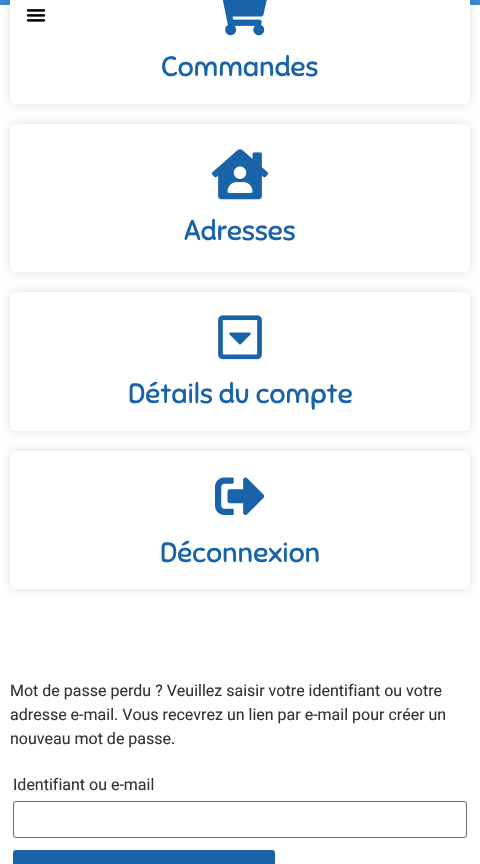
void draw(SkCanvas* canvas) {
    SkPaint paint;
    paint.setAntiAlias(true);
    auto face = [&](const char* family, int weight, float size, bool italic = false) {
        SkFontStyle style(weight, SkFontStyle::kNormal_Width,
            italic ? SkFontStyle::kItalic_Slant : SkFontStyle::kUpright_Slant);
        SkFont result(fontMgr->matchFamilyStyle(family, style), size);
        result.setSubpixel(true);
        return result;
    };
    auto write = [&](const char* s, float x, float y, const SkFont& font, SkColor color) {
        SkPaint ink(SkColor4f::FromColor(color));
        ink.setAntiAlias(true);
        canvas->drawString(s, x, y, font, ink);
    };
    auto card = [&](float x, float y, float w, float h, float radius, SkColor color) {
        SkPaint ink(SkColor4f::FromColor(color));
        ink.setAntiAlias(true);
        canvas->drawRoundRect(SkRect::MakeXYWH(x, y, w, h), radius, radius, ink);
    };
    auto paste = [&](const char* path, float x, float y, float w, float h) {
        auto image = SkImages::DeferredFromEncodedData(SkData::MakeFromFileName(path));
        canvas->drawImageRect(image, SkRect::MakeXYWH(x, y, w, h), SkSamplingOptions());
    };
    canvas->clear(SK_ColorWHITE);
    {
        const SkColor colors[] = {SkColorSetRGB(25, 99, 168), SkColorSetRGB(60, 138, 211)};
        const float stops[] = {0.21f, 0.9f};
        const SkPoint ends[] = {{240, -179}, {240, 5}};
        paint.setShader(SkGradientShader::MakeLinear(ends, colors, stops, 2, SkTileMode::kClamp));
        paint.setAlpha(255);
    }
    canvas->drawRect(SkRect::MakeXYWH(0, 0, 480, 5), paint);
    paint.setShader(nullptr);
    paint.setColor(SkColorSetARGB(33, 0, 0, 0));
    paint.setMaskFilter(SkMaskFilter::MakeBlur(kNormal_SkBlurStyle, 5));
    canvas->drawRoundRect(SkRect::MakeXYWH(10, -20, 460, 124), 5, 5, paint);
    paint.setMaskFilter(nullptr);
    card(10, -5, 460, 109, 5, SK_ColorWHITE);
    paste("pic1.png", 26, 9, 20, 13);
    paste("pic2.png", 222, 0, 45, 36);
    auto kFont1 = face("Sniglet", 400, 28);
    write("Commandes", 161, 76, kFont1, SkColorSetRGB(25, 99, 168));
    paint.setMaskFilter(SkMaskFilter::MakeBlur(kNormal_SkBlurStyle, 5));
    canvas->drawRoundRect(SkRect::MakeXYWH(10, 124, 460, 148), 5, 5, paint);
    paint.setMaskFilter(nullptr);
    card(10, 124, 460, 148, 5, SK_ColorWHITE);
    paste("pic3.png", 211, 149, 58, 51);
    write("Adresses", 184, 240, kFont1, SkColorSetRGB(25, 99, 168));
    paint.setMaskFilter(SkMaskFilter::MakeBlur(kNormal_SkBlurStyle, 5));
    canvas->drawRoundRect(SkRect::MakeXYWH(10, 292, 460, 139), 5, 5, paint);
    paint.setMaskFilter(nullptr);
    card(10, 292, 460, 139, 5, SK_ColorWHITE);
    paste("pic4.png", 218, 315, 44, 45);
    write("Détails du compte", 128, 403, kFont1, SkColorSetRGB(25, 99, 168));
    paint.setMaskFilter(SkMaskFilter::MakeBlur(kNormal_SkBlurStyle, 5));
    canvas->drawRoundRect(SkRect::MakeXYWH(10, 451, 460, 138), 5, 5, paint);
    paint.setMaskFilter(nullptr);
    card(10, 451, 460, 138, 5, SK_ColorWHITE);
    paste("pic5.png", 215, 477, 50, 38);
    write("Déconnexion", 160, 562, kFont1, SkColorSetRGB(25, 99, 168));
    auto kFont2 = face("Roboto", 400, 16);
    write("Mot de passe perdu ? Veuillez saisir votre identifiant ou votre", 10, 696, kFont2, SkColorSetRGB(51, 51, 51));
    write("adresse e-mail. Vous recevrez un lien par e-mail pour créer un", 10, 720, kFont2, SkColorSetRGB(51, 51, 51));
    write("nouveau mot de passe.", 10, 744, kFont2, SkColorSetRGB(51, 51, 51));
    write("Identifiant ou e-mail", 13, 790, kFont2, SkColorSetRGB(51, 51, 51));
    paint.setStyle(SkPaint::kStroke_Style);
    paint.setStrokeWidth(1);
    paint.setColor(SkColorSetRGB(102, 102, 102));
    canvas->drawRoundRect(SkRect::MakeXYWH(13.5f, 801.5f, 453, 36), 2.5f, 2.5f, paint);
    card(13, 850, 262, 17, 3, SkColorSetRGB(25, 99, 168));
}
